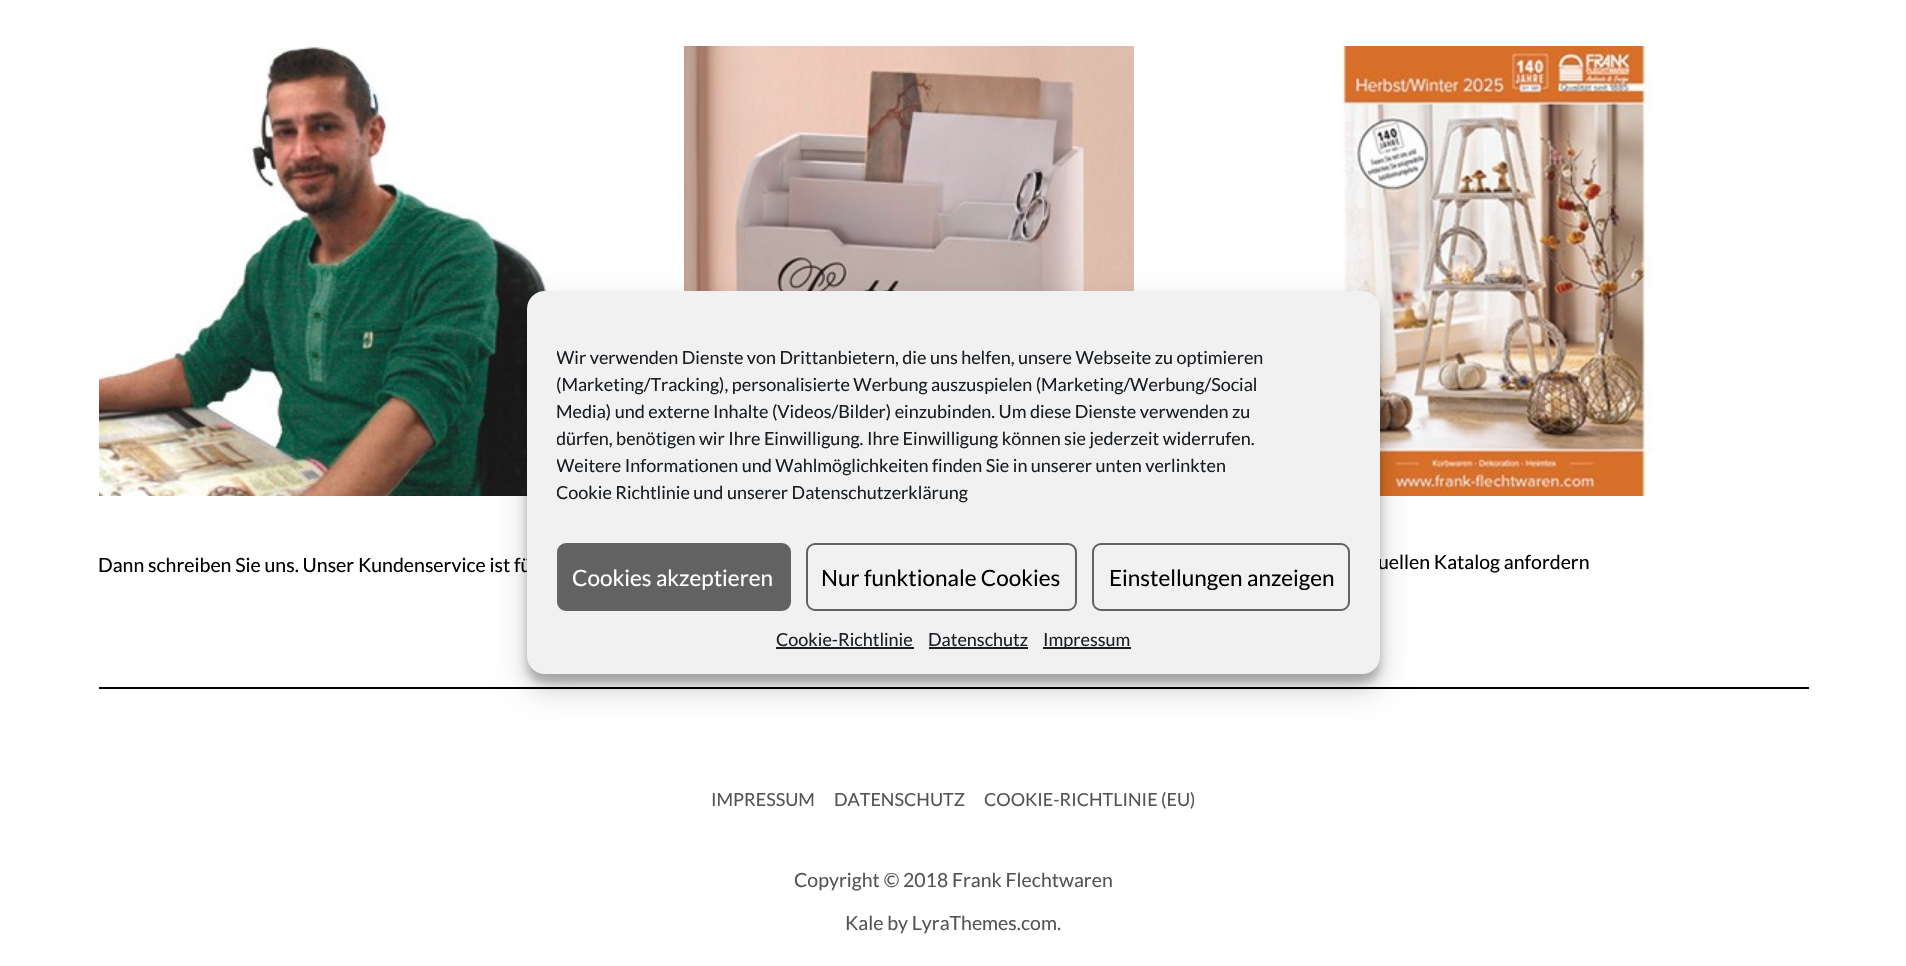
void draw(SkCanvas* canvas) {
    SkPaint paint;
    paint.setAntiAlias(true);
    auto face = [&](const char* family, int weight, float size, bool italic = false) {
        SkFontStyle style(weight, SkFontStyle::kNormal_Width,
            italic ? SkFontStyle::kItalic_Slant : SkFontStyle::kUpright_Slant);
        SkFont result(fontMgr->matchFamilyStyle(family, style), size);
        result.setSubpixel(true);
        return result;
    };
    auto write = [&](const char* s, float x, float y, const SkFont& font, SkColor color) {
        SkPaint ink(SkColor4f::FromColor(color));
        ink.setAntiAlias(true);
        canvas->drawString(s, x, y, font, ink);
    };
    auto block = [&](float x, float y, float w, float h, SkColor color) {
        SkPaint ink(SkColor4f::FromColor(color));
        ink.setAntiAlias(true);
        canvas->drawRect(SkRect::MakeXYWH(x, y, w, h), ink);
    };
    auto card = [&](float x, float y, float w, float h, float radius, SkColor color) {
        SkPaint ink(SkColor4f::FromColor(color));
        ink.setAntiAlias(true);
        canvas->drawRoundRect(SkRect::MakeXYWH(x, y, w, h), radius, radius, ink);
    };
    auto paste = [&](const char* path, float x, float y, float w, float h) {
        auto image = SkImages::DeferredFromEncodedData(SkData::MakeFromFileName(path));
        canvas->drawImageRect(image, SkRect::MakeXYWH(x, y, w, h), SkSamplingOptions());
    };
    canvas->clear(SK_ColorWHITE);
    paste("pic1.png", 684, 46, 450, 245);
    paste("pic2.png", 99, 46, 450, 450);
    paste("pic3.png", 1340, 46, 313, 450);
    block(99, 687, 1710, 2, SK_ColorBLACK);
    paint.setColor(SkColorSetARGB(59, 0, 0, 0));
    paint.setMaskFilter(SkMaskFilter::MakeBlur(kNormal_SkBlurStyle, 4.5f));
    canvas->drawRoundRect(SkRect::MakeXYWH(527, 300, 853, 383), 18, 18, paint);
    paint.setMaskFilter(nullptr);
    paint.setColor(SkColorSetARGB(48, 0, 0, 0));
    paint.setMaskFilter(SkMaskFilter::MakeBlur(kNormal_SkBlurStyle, 15));
    canvas->drawRoundRect(SkRect::MakeXYWH(527, 306, 853, 383), 18, 18, paint);
    paint.setMaskFilter(nullptr);
    auto kFont1 = face("Lato", 400, 19.5f);
    write("Dann schreiben Sie uns. Unser Kundenservice ist fü", 98, 572, kFont1, SK_ColorBLACK);
    write("uellen Katalog anfordern", 1378, 569, kFont1, SK_ColorBLACK);
    card(527, 291, 853, 383, 18, SkColorSetRGB(241, 241, 241));
    canvas->save();
    canvas->clipRect(SkRect::MakeXYWH(557, 344, 793, 169));
    auto kFont2 = face("Lato", 400, 18);
    write("Wir verwenden Dienste von Drittanbietern, die uns helfen, unsere Webseite zu optimieren", 556, 364, kFont2, SkColorSetRGB(25, 30, 35));
    canvas->restore();
    write("(Marketing/Tracking), personalisierte Werbung auszuspielen (Marketing/Werbung/Social", 556, 391, kFont2, SkColorSetRGB(25, 30, 35));
    write("Media) und externe Inhalte (Videos/Bilder) einzubinden. Um diese Dienste verwenden zu", 556, 418, kFont2, SkColorSetRGB(25, 30, 35));
    canvas->save();
    canvas->clipRect(SkRect::MakeXYWH(557, 344, 793, 169));
    write("dürfen, benötigen wir Ihre Einwilligung. Ihre Einwilligung können sie jederzeit widerrufen.", 556, 445, kFont2, SkColorSetRGB(25, 30, 35));
    write("Weitere Informationen und Wahlmöglichkeiten finden Sie in unserer unten verlinkten", 556, 472, kFont2, SkColorSetRGB(25, 30, 35));
    write("Cookie Richtlinie und unserer Datenschutzerklärung", 556, 499, kFont2, SkColorSetRGB(25, 30, 35));
    canvas->restore();
    paint.setColor(SkColorSetRGB(98, 98, 98));
    canvas->drawRoundRect(SkRect::MakeXYWH(558, 544, 232, 66), 8, 8, paint);
    paint.setStyle(SkPaint::kStroke_Style);
    paint.setStrokeWidth(2);
    canvas->drawRoundRect(SkRect::MakeXYWH(558, 544, 232, 66), 8, 8, paint);
    auto kFont3 = face("Lato", 400, 22.5f);
    write("Cookies akzeptieren", 572, 586, kFont3, SK_ColorWHITE);
    canvas->drawRoundRect(SkRect::MakeXYWH(807, 544, 269, 66), 8, 8, paint);
    write("Nur funktionale Cookies", 821, 586, kFont3, SK_ColorBLACK);
    canvas->drawRoundRect(SkRect::MakeXYWH(1093, 544, 256, 66), 8, 8, paint);
    write("Einstellungen anzeigen", 1109, 586, kFont3, SK_ColorBLACK);
    write("Cookie-Richtlinie", 776, 646, kFont2, SkColorSetRGB(25, 30, 35));
    block(776, 647, 138, 2, SkColorSetRGB(25, 30, 35));
    write("Datenschutz", 928, 646, kFont2, SkColorSetRGB(25, 30, 35));
    block(929, 647, 99, 2, SkColorSetRGB(25, 30, 35));
    block(1043, 647, 88, 2, SkColorSetRGB(25, 30, 35));
    write("Impressum", 1043, 646, kFont2, SkColorSetRGB(25, 30, 35));
    write("IMPRESSUM", 711, 806, kFont2, SkColorSetRGB(84, 84, 84));
    write("DATENSCHUTZ", 834, 806, kFont2, SkColorSetRGB(84, 84, 84));
    write("COOKIE-RICHTLINIE (EU)", 984, 806, kFont2, SkColorSetRGB(84, 84, 84));
    write("Copyright © 2018 Frank Flechtwaren", 794, 887, kFont1, SkColorSetRGB(84, 84, 84));
    write("Kale by LyraThemes.com.", 845, 930, kFont1, SkColorSetRGB(84, 84, 84));
}
